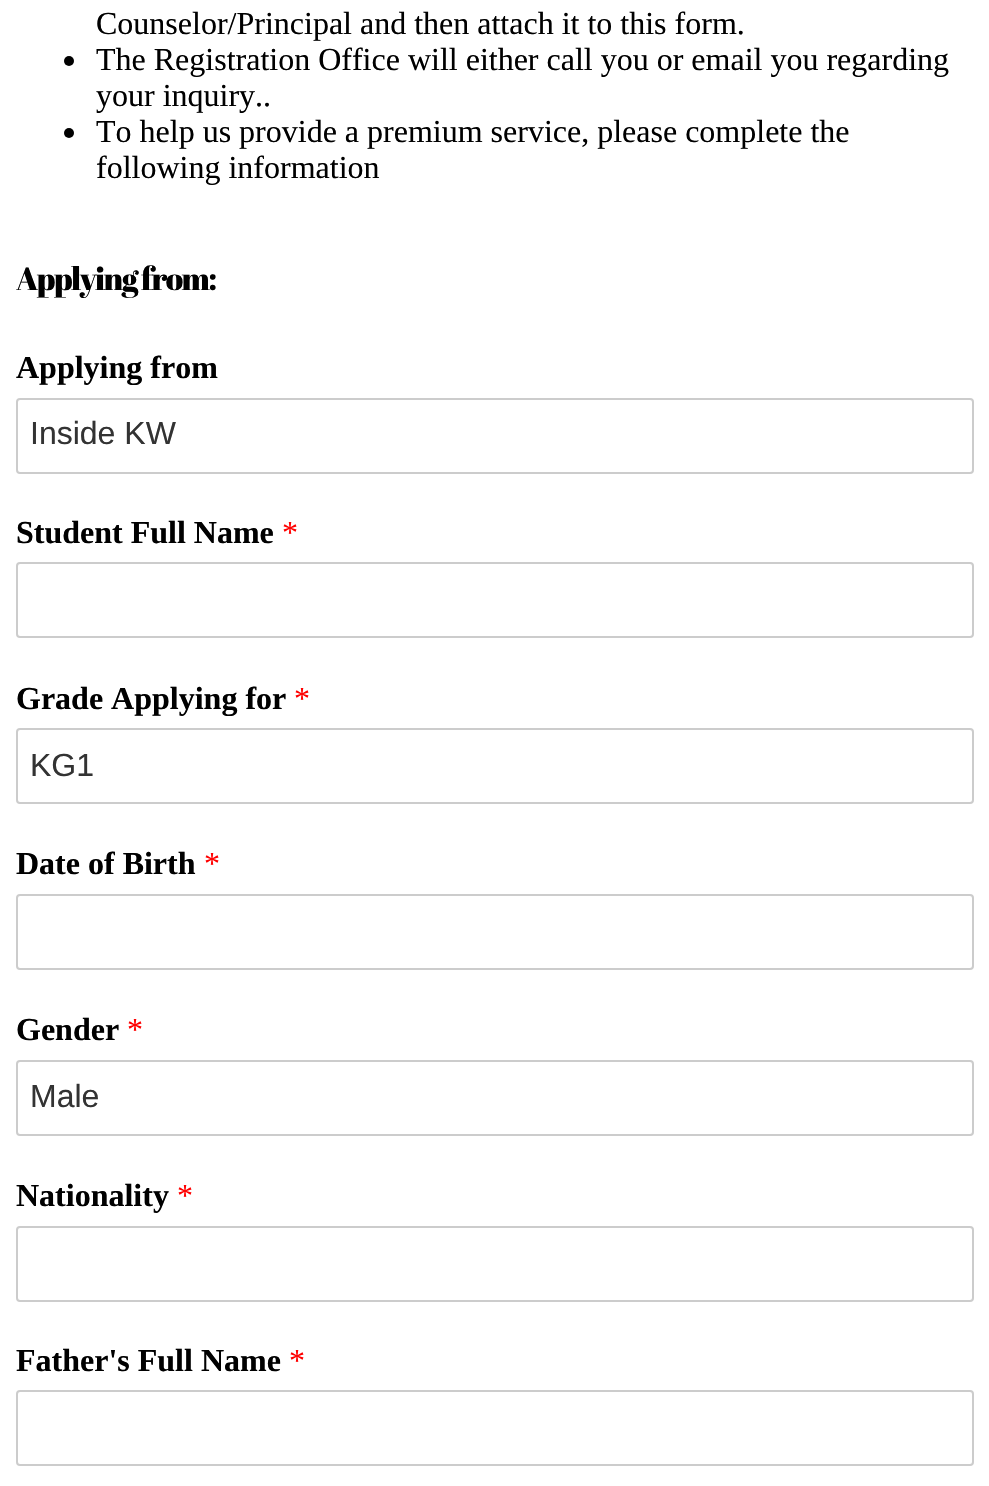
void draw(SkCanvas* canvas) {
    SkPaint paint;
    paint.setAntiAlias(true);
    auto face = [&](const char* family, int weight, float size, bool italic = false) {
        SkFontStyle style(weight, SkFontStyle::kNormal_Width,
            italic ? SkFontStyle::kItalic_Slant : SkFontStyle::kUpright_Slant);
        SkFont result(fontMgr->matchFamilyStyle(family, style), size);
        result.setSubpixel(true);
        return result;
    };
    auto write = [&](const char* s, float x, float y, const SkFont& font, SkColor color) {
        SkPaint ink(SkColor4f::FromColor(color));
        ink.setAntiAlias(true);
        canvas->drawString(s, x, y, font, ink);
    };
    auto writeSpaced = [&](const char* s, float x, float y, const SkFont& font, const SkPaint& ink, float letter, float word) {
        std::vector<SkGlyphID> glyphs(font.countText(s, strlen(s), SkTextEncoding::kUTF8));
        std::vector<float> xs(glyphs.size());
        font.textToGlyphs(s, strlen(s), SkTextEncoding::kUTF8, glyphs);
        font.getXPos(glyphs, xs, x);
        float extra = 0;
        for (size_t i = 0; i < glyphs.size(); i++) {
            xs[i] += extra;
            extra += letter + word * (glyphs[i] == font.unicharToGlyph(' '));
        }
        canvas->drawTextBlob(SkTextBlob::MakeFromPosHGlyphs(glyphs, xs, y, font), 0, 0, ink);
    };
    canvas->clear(SK_ColorWHITE);
    auto kFont1 = face("Liberation Serif", 400, 32);
    write("Counselor/Principal and then attach it to this form.", 96, 34, kFont1, SK_ColorBLACK);
    paint.setColor(SK_ColorBLACK);
    canvas->drawCircle(69, 61, 5, paint);
    write("The Registration Office will either call you or email you regarding", 96, 70, kFont1, SK_ColorBLACK);
    write("your inquiry..", 96, 106, kFont1, SK_ColorBLACK);
    canvas->drawCircle(69, 133, 5, paint);
    write("To help us provide a premium service, please complete the", 96, 142, kFont1, SK_ColorBLACK);
    write("following information", 96, 178, kFont1, SK_ColorBLACK);
    auto kFont2 = face("Abril Fatface", 400, 32);
    writeSpaced("Applying from:", 16, 290, kFont2, paint, -1.6f, 0);
    auto kFont3 = face("Liberation Serif", 700, 32);
    write("Applying from", 16, 378, kFont3, SK_ColorBLACK);
    paint.setStyle(SkPaint::kStroke_Style);
    paint.setStrokeWidth(2);
    paint.setColor(SkColorSetRGB(204, 204, 204));
    canvas->drawRoundRect(SkRect::MakeXYWH(17, 399, 956, 74), 3, 3, paint);
    auto kFont4 = face("Liberation Sans", 400, 32);
    write("Inside KW", 30, 444, kFont4, SkColorSetRGB(51, 51, 51));
    write("Student Full Name", 16, 543, kFont3, SK_ColorBLACK);
    write("*", 282, 543, kFont1, SkColorSetRGB(255, 0, 0));
    canvas->drawRoundRect(SkRect::MakeXYWH(17, 563, 956, 74), 3, 3, paint);
    write("Grade Applying for", 16, 709, kFont3, SK_ColorBLACK);
    write("*", 294, 709, kFont1, SkColorSetRGB(255, 0, 0));
    canvas->drawRoundRect(SkRect::MakeXYWH(17, 729, 956, 74), 3, 3, paint);
    write("KG1", 30, 776, kFont4, SkColorSetRGB(51, 51, 51));
    write("Date of Birth", 16, 874, kFont3, SK_ColorBLACK);
    write("*", 204, 874, kFont1, SkColorSetRGB(255, 0, 0));
    canvas->drawRoundRect(SkRect::MakeXYWH(17, 895, 956, 74), 3, 3, paint);
    write("Gender", 16, 1040, kFont3, SK_ColorBLACK);
    write("*", 127, 1040, kFont1, SkColorSetRGB(255, 0, 0));
    canvas->drawRoundRect(SkRect::MakeXYWH(17, 1061, 956, 74), 3, 3, paint);
    write("Male", 30, 1107, kFont4, SkColorSetRGB(51, 51, 51));
    write("Nationality", 16, 1206, kFont3, SK_ColorBLACK);
    write("*", 177, 1206, kFont1, SkColorSetRGB(255, 0, 0));
    canvas->drawRoundRect(SkRect::MakeXYWH(17, 1227, 956, 74), 3, 3, paint);
    write("Father's Full Name", 16, 1371, kFont3, SK_ColorBLACK);
    write("*", 289, 1371, kFont1, SkColorSetRGB(255, 0, 0));
    canvas->drawRoundRect(SkRect::MakeXYWH(17, 1391, 956, 74), 3, 3, paint);
}
